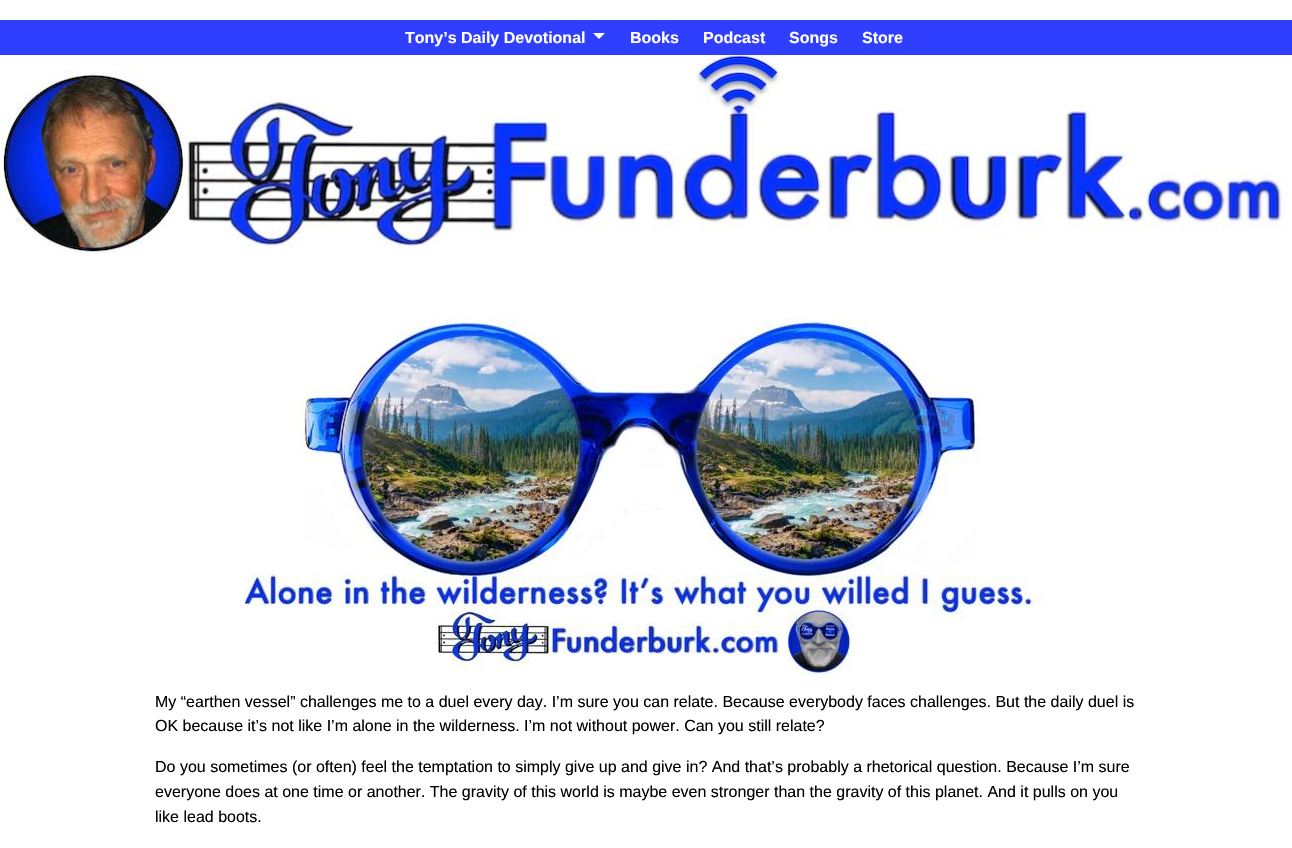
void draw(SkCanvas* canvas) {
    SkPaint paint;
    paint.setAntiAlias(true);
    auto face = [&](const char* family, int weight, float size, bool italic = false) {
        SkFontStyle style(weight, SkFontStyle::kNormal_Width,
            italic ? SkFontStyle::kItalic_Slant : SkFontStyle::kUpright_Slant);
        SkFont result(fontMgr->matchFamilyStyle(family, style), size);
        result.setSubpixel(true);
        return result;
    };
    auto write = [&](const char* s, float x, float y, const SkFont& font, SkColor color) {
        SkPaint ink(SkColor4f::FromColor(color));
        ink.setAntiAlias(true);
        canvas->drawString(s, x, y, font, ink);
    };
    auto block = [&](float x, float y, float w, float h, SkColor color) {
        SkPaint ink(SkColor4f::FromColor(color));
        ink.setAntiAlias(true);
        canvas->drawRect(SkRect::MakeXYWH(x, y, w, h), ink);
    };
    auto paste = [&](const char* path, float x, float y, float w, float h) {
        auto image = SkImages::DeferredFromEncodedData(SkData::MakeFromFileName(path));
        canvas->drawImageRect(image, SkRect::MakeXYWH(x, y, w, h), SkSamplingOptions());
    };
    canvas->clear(SK_ColorWHITE);
    block(0, 20, 1292, 35, SkColorSetRGB(48, 62, 255));
    auto kFont1 = face("Liberation Sans", 700, 16);
    write("Tony’s Daily Devotional", 405, 43, kFont1, SK_ColorWHITE);
    paint.setColor(SK_ColorWHITE);
    canvas->drawPath(SkPathBuilder().moveTo(593, 33).lineTo(605, 33).lineTo(599, 39).close().detach(), paint);
    write("Books", 630, 43, kFont1, SK_ColorWHITE);
    write("Podcast", 703, 43, kFont1, SK_ColorWHITE);
    write("Songs", 789, 43, kFont1, SK_ColorWHITE);
    write("Store", 862, 43, kFont1, SK_ColorWHITE);
    paste("pic1.png", 0, 55, 1288, 199);
    paste("pic2.png", 243, 318, 802, 357);
    auto kFont2 = face("Liberation Sans", 400, 16);
    write("My “earthen vessel” challenges me to a duel every day. I’m sure you can relate. Because everybody faces challenges. But the daily duel is", 155, 707, kFont2, SK_ColorBLACK);
    write("OK because it’s not like I’m alone in the wilderness. I’m not without power. Can you still relate?", 155, 731, kFont2, SK_ColorBLACK);
    write("Do you sometimes (or often) feel the temptation to simply give up and give in? And that’s probably a rhetorical question. Because I’m sure", 155, 772, kFont2, SK_ColorBLACK);
    write("everyone does at one time or another. The gravity of this world is maybe even stronger than the gravity of this planet. And it pulls on you", 155, 797, kFont2, SK_ColorBLACK);
    write("like lead boots.", 155, 822, kFont2, SK_ColorBLACK);
}
